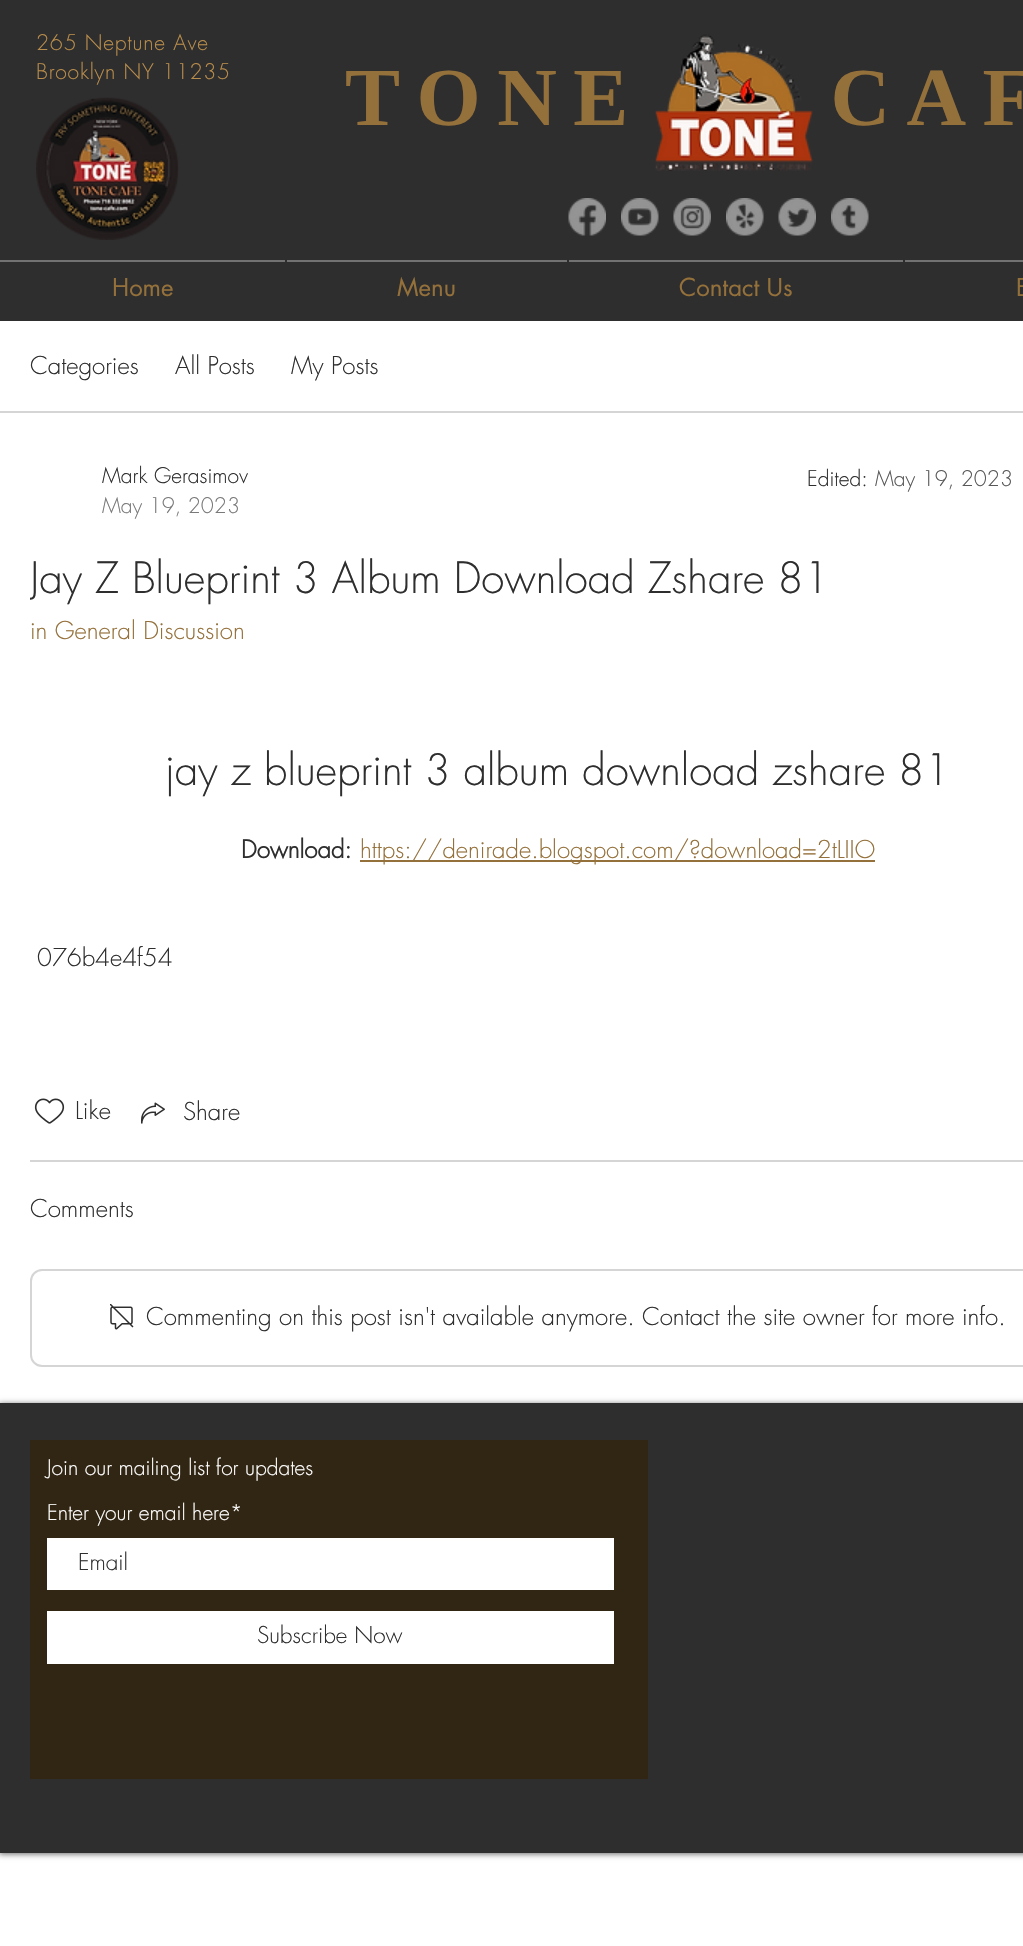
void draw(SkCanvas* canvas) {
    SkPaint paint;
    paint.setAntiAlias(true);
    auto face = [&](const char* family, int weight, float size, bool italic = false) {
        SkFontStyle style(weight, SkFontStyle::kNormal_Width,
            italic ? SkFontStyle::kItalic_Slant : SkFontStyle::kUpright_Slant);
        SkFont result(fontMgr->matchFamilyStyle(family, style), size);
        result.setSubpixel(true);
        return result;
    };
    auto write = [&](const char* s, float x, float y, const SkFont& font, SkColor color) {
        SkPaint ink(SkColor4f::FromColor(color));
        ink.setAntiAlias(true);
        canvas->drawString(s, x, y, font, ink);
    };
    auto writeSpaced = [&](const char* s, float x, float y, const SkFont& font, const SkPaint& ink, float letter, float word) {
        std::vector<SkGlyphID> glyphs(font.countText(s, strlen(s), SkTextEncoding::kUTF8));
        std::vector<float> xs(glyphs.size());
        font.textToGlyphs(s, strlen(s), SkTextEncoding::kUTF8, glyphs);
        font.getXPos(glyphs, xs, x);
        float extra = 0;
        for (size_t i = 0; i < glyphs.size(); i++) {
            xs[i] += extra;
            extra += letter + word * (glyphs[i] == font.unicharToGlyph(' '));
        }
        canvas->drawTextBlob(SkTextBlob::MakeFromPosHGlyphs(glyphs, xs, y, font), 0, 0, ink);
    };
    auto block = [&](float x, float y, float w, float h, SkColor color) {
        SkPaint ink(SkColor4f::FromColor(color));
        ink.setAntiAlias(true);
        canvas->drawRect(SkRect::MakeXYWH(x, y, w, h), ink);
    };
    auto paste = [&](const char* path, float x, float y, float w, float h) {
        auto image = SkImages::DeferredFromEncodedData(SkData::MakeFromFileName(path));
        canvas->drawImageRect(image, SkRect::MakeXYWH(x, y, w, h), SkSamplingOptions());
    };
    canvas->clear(SK_ColorWHITE);
    block(0, 0, 1023, 321, SkColorSetRGB(47, 46, 46));
    auto kFont1 = face("futura", 300, 21);
    paint.setColor(SkColorSetRGB(185, 141, 75));
    writeSpaced("265 Neptune Ave", 36, 50, kFont1, paint, 0.8f, 0);
    writeSpaced("Brooklyn NY 11235", 36, 79, kFont1, paint, 0.8f, 0);
    auto kFont2 = face("Liberation Serif", 700, 82.5f);
    paint.setColor(SkColorSetRGB(148, 112, 58));
    writeSpaced("TONE     CAF", 345, 125, kFont2, paint, 16.5f, 0);
    paste("pic1.png", 655, 34, 158, 137);
    paste("pic2.png", 36, 97, 143, 143);
    paste("pic3.png", 568, 198, 38, 38);
    paste("pic4.png", 621, 198, 38, 38);
    paste("pic5.png", 673, 198, 38, 38);
    paste("pic6.png", 726, 198, 38, 38);
    paste("pic7.png", 778, 198, 38, 38);
    paste("pic8.png", 831, 198, 38, 38);
    block(0, 260, 1023, 2, SkColorSetRGB(115, 114, 114));
    auto kFont3 = face("futura", 400, 24);
    write("Home", 112, 296, kFont3, SkColorSetRGB(148, 112, 58));
    block(285, 260, 2, 2, SkColorSetRGB(47, 46, 46));
    write("Menu", 397, 296, kFont3, SkColorSetRGB(148, 112, 58));
    block(567, 260, 2, 2, SkColorSetRGB(47, 46, 46));
    write("Contact Us", 679, 296, kFont3, SkColorSetRGB(148, 112, 58));
    block(903, 260, 2, 2, SkColorSetRGB(47, 46, 46));
    write("E", 1016, 296, kFont3, SkColorSetRGB(148, 112, 58));
    block(0, 411, 1023, 2, SkColorSetRGB(213, 213, 213));
    auto kFont4 = face("futura", 300, 24);
    write("Categories", 30, 374, kFont4, SkColorSetRGB(47, 46, 46));
    write("All Posts", 175, 374, kFont4, SkColorSetRGB(47, 46, 46));
    write("My Posts", 291, 374, kFont4, SkColorSetRGB(47, 46, 46));
    write("Mark Gerasimov", 102, 483, kFont1, SkColorSetRGB(47, 46, 46));
    write("May 19, 2023", 102, 513, kFont1, SkColorSetRGB(122, 121, 121));
    write("Edited:", 807, 486, kFont1, SkColorSetRGB(47, 46, 46));
    write("May 19, 2023", 875, 486, kFont1, SkColorSetRGB(89, 88, 88));
    canvas->save();
    canvas->clipRect(SkRect::MakeXYWH(30, 551, 800, 54));
    auto kFont5 = face("futura", 300, 42);
    write("Jay Z Blueprint 3 Album Download Zshare 81", 30, 593, kFont5, SkColorSetRGB(47, 46, 46));
    canvas->restore();
    write("in General Discussion", 30, 639, kFont4, SkColorSetRGB(148, 112, 58));
    write("jay z blueprint 3 album download zshare 81", 165, 785, kFont5, SkColorSetRGB(47, 46, 46));
    auto kFont6 = face("futura", 700, 24);
    write("Download:", 241, 858, kFont6, SkColorSetRGB(47, 46, 46));
    block(360, 860, 515, 2, SkColorSetRGB(148, 112, 58));
    write("https://denirade.blogspot.com/?download=2tLIIO", 360, 858, kFont4, SkColorSetRGB(148, 112, 58));
    write("076b4e4f54", 37, 966, kFont4, SkColorSetRGB(47, 46, 46));
    paste("pic9.png", 34, 1098, 31, 26);
    write("Like", 75, 1119, kFont4, SkColorSetRGB(47, 46, 46));
    paste("pic10.png", 141, 1102, 24, 22);
    write("Share", 183, 1120, kFont4, SkColorSetRGB(47, 46, 46));
    block(30, 1160, 993, 2, SkColorSetRGB(213, 213, 213));
    write("Comments", 30, 1217, kFont4, SkColorSetRGB(47, 46, 46));
    paint.setStyle(SkPaint::kStroke_Style);
    paint.setStrokeWidth(2);
    paint.setColor(SkColorSetRGB(213, 213, 213));
    canvas->drawRoundRect(SkRect::MakeXYWH(31, 1270, 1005, 96), 11, 11, paint);
    paste("pic11.png", 110, 1304, 24, 26);
    write("Commenting on this post isn't available anymore. Contact the site owner for more info.", 146, 1325, kFont4, SkColorSetRGB(47, 46, 46));
    paint.setStyle(SkPaint::kFill_Style);
    paint.setColor(SkColorSetARGB(153, 0, 0, 0));
    paint.setMaskFilter(SkMaskFilter::MakeBlur(kNormal_SkBlurStyle, 3));
    canvas->drawRect(SkRect::MakeXYWH(-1, 1404, 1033, 450), paint);
    paint.setMaskFilter(nullptr);
    block(0, 1403, 1023, 450, SkColorSetRGB(47, 46, 46));
    block(30, 1440, 618, 339, SkColorSetRGB(49, 37, 19));
    write("Join our mailing list for updates", 47, 1475, kFont1, SK_ColorWHITE);
    write("Enter your email here*", 47, 1520, kFont1, SK_ColorWHITE);
    block(47, 1538, 567, 52, SK_ColorWHITE);
    auto kFont7 = face("futura", 300, 22.5f);
    write("Email", 78, 1570, kFont7, SkColorSetRGB(47, 46, 46));
    block(47, 1611, 567, 53, SK_ColorWHITE);
    write("Subscribe Now", 257, 1643, kFont7, SkColorSetRGB(47, 46, 46));
}
